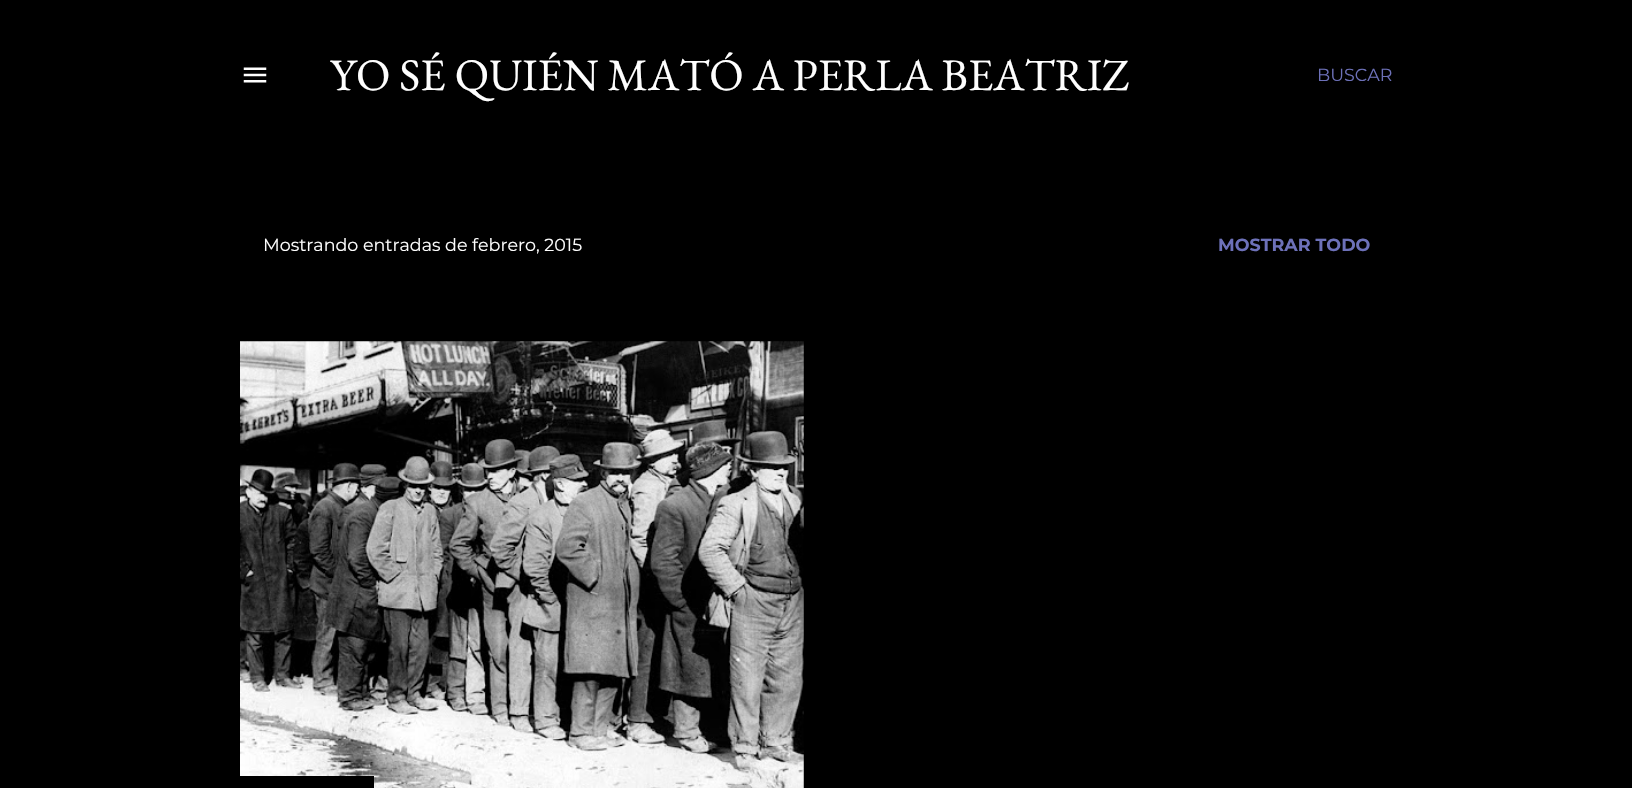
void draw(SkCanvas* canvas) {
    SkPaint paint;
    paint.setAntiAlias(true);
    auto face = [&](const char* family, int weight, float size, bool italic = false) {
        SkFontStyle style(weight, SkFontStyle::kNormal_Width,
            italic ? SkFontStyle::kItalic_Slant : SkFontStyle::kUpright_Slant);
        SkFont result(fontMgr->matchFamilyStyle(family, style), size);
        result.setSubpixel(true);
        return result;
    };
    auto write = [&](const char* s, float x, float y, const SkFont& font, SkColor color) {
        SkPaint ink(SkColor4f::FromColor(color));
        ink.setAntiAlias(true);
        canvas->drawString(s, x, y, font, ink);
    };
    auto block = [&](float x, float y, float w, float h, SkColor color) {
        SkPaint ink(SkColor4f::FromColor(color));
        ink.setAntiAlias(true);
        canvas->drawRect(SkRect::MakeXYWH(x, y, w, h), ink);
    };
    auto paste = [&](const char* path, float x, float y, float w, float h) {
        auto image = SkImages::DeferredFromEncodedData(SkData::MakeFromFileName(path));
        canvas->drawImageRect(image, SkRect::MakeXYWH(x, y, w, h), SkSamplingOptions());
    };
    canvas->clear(SK_ColorBLACK);
    paste("pic1.png", 243, 67, 24, 16);
    auto kFont1 = face("EB Garamond", 400, 45);
    write("YO SÉ QUIÉN MATÓ A PERLA BEATRIZ", 330, 90, kFont1, SkColorSetRGB(254, 254, 254));
    auto kFont2 = face("Montserrat", 400, 17.5f);
    write("BUSCAR", 1317, 81, kFont2, SkColorSetRGB(109, 113, 185));
    write("Mostrando entradas de febrero, 2015", 263, 251, kFont2, SkColorSetRGB(254, 254, 254));
    auto kFont3 = face("Montserrat", 700, 17.5f);
    write("MOSTRAR TODO", 1218, 251, kFont3, SkColorSetRGB(109, 113, 185));
    paste("pic2.png", 240, 341, 564, 447);
    block(240, 776, 134, 12, SK_ColorBLACK);
}
